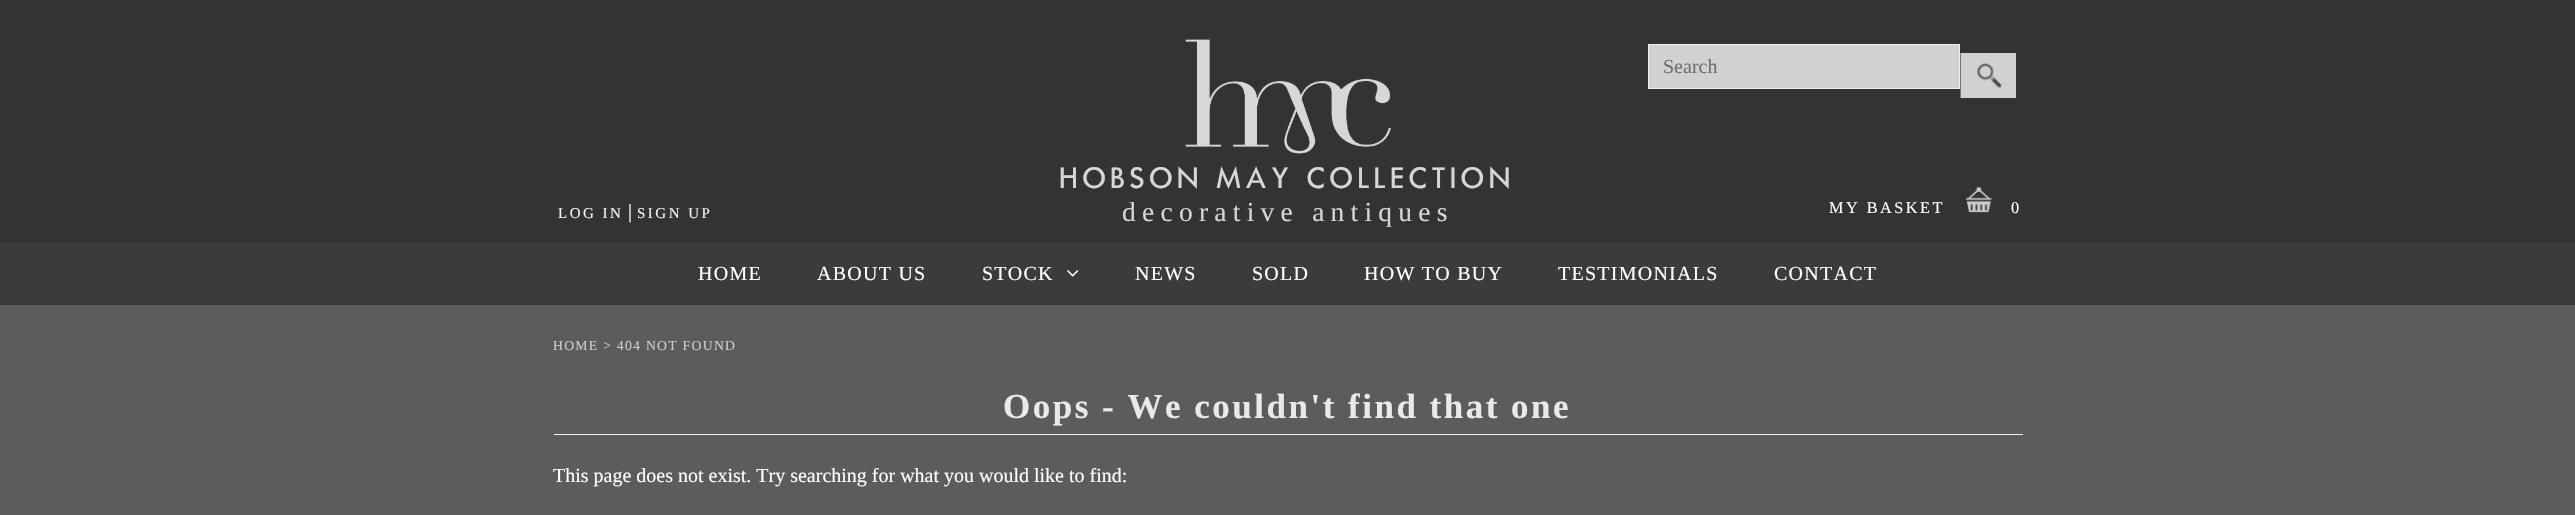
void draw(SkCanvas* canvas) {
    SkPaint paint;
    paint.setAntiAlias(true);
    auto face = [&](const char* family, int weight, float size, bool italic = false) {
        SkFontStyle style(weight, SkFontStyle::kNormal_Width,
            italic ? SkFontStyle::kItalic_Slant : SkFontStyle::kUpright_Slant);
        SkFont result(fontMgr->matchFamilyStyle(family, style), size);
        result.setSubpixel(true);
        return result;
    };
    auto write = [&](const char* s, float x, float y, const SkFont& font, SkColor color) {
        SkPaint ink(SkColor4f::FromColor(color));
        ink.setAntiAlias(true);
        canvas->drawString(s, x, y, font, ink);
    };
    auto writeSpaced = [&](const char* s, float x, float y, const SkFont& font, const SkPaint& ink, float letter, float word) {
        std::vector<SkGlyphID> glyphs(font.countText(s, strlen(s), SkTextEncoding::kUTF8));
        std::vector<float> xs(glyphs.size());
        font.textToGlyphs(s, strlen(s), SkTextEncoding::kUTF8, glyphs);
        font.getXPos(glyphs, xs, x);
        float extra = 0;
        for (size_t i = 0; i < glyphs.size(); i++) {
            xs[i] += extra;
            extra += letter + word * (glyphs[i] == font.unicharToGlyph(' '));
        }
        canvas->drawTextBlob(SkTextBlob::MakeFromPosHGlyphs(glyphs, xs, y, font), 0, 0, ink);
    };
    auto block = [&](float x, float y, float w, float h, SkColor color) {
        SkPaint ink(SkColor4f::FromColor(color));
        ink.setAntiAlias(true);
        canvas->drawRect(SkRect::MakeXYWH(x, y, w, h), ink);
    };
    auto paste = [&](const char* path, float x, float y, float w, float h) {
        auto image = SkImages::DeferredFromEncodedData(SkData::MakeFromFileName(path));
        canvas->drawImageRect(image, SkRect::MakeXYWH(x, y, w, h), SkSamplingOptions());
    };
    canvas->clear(SkColorSetRGB(92, 92, 92));
    block(0, 0, 2575, 243, SkColorSetRGB(51, 51, 51));
    auto kFont1 = face("Liberation Serif", 400, 15);
    paint.setColor(SkColorSetRGB(243, 242, 242));
    writeSpaced("LOG IN", 558, 218, kFont1, paint, 2.5f, 0);
    auto kFont2 = face("Liberation Serif", 400, 20);
    write("|", 628, 218, kFont2, SK_ColorWHITE);
    writeSpaced("SIGN UP", 637, 218, kFont1, paint, 2.5f, 0);
    paste("pic1.png", 1185, 39, 206, 115);
    auto kFont3 = face("Futura", 500, 31.25f);
    paint.setColor(SkColorSetRGB(214, 214, 214));
    writeSpaced("HOBSON MAY COLLECTION", 1060, 188, kFont3, paint, 6.25f, 0);
    auto kFont4 = face("Liberation Serif", 400, 27.5f);
    writeSpaced("decorative antiques", 1122, 221, kFont4, paint, 6.25f, 0);
    paint.setColor(SkColorSetRGB(209, 209, 209));
    canvas->drawRect(SkRect::MakeXYWH(1648.5f, 44.5f, 311, 44), paint);
    paint.setStyle(SkPaint::kStroke_Style);
    paint.setStrokeWidth(1);
    paint.setColor(SkColorSetRGB(240, 240, 240));
    canvas->drawRect(SkRect::MakeXYWH(1648.5f, 44.5f, 311, 44), paint);
    write("Search", 1663, 73, kFont2, SkColorSetRGB(111, 110, 110));
    block(1961, 53, 55, 45, SkColorSetRGB(209, 209, 209));
    paste("pic2.png", 1977, 63, 25, 25);
    block(1960, 53, 1, 45, SkColorSetRGB(119, 119, 119));
    auto kFont5 = face("Liberation Serif", 400, 16.25f);
    paint.setStyle(SkPaint::kFill_Style);
    paint.setColor(SK_ColorWHITE);
    writeSpaced("MY BASKET", 1829, 213, kFont5, paint, 2.5f, 0);
    paste("pic3.png", 1966, 187, 26, 26);
    writeSpaced("0", 2011, 213, kFont5, paint, 2.5f, 0);
    block(0, 243, 2575, 62, SkColorSetRGB(59, 59, 59));
    writeSpaced("HOME", 698, 280, kFont2, paint, 1.25f, 0);
    writeSpaced("ABOUT US", 817, 280, kFont2, paint, 1.25f, 0);
    writeSpaced("STOCK", 982, 280, kFont2, paint, 1.25f, 0);
    paste("pic4.png", 1067, 270, 12, 7);
    writeSpaced("NEWS", 1135, 280, kFont2, paint, 1.25f, 0);
    writeSpaced("SOLD", 1252, 280, kFont2, paint, 1.25f, 0);
    writeSpaced("HOW TO BUY", 1364, 280, kFont2, paint, 1.25f, 0);
    writeSpaced("TESTIMONIALS", 1558, 280, kFont2, paint, 1.25f, 0);
    writeSpaced("CONTACT", 1774, 280, kFont2, paint, 1.25f, 0);
    auto kFont6 = face("Liberation Serif", 400, 13.75f);
    paint.setColor(SkColorSetRGB(204, 204, 204));
    writeSpaced("HOME > 404 NOT FOUND", 553, 350, kFont6, paint, 1.25f, 0);
    block(554, 434, 1469, 1, SkColorSetRGB(240, 240, 240));
    auto kFont7 = face("Liberation Serif", 700, 35);
    paint.setColor(SkColorSetRGB(233, 233, 233));
    writeSpaced("Oops - We couldn't find that one", 1003, 418, kFont7, paint, 2.5f, 0);
    write("This page does not exist. Try searching for what you would like to find:", 553, 482, kFont2, SK_ColorWHITE);
}
